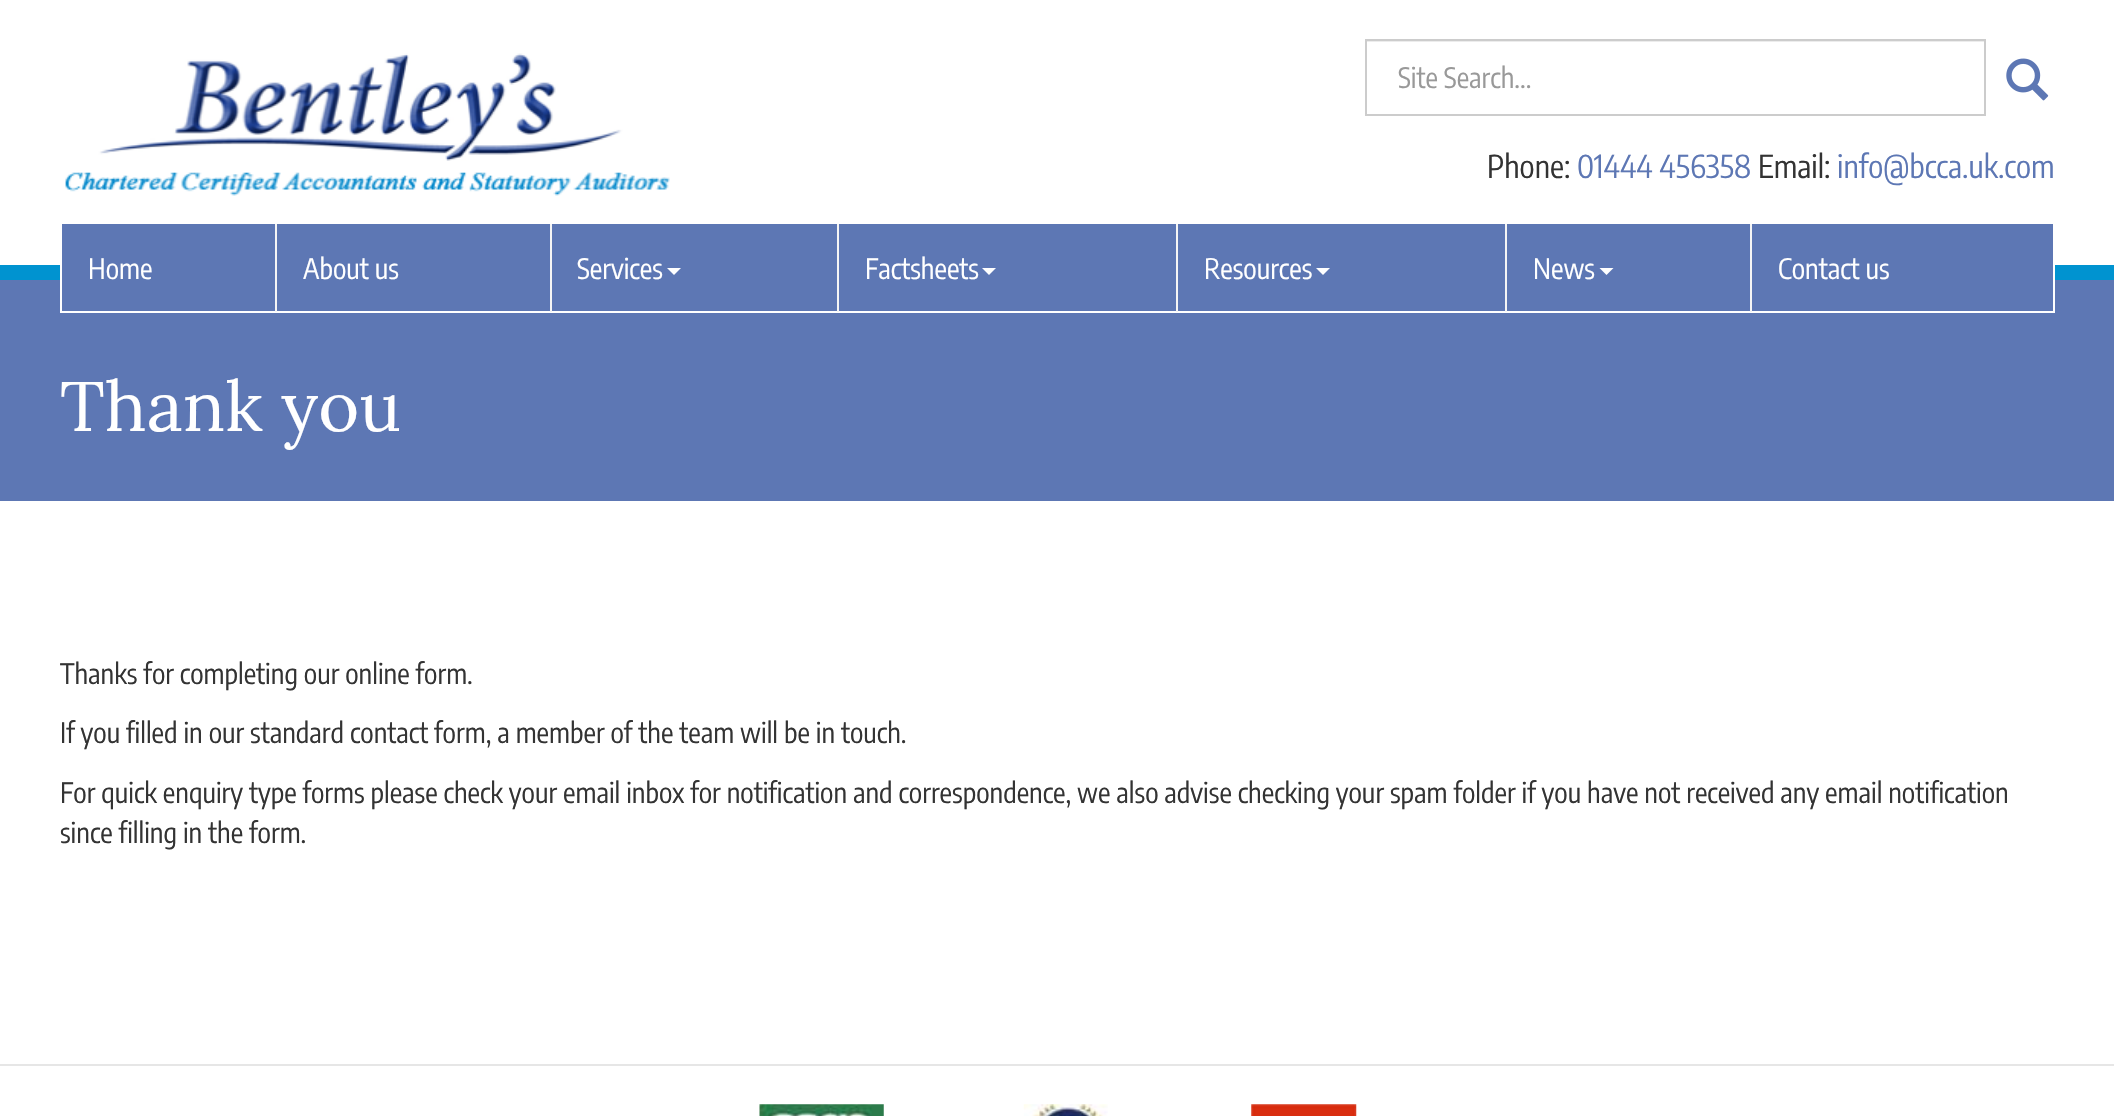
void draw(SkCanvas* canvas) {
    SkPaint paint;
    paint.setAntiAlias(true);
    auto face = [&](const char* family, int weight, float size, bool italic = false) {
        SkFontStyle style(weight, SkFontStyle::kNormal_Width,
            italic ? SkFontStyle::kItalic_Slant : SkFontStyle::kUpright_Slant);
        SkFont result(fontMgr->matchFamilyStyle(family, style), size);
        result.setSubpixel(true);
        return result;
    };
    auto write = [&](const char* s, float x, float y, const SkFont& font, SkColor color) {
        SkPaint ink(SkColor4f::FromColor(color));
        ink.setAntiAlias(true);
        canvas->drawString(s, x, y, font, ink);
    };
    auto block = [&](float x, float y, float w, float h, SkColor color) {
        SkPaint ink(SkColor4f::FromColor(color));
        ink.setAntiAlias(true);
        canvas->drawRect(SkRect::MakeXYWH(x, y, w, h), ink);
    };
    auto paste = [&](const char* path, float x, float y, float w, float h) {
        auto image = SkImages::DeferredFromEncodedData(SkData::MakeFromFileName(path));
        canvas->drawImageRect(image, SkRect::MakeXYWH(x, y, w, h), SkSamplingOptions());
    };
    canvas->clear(SK_ColorWHITE);
    paste("pic1.png", 65, 53, 605, 143);
    block(1367, 41, 618, 1, SkColorSetRGB(236, 236, 236));
    paint.setStyle(SkPaint::kStroke_Style);
    paint.setStrokeWidth(2);
    paint.setColor(SkColorSetRGB(204, 204, 204));
    canvas->drawRect(SkRect::MakeXYWH(1366, 40, 619, 75), paint);
    auto kFont1 = face("Encode Sans Condensed", 400, 28);
    write("Site Search...", 1398, 88, kFont1, SkColorSetRGB(153, 153, 153));
    paste("pic2.png", 2006, 58, 43, 43);
    auto kFont2 = face("Encode Sans Condensed", 400, 31.5f);
    write("Phone:", 1487, 178, kFont2, SkColorSetRGB(51, 51, 51));
    write("01444 456358", 1577, 178, kFont2, SkColorSetRGB(93, 119, 180));
    write("Email:", 1758, 178, kFont2, SkColorSetRGB(51, 51, 51));
    write("info@bcca.uk.com", 1837, 178, kFont2, SkColorSetRGB(93, 119, 180));
    block(0, 265, 2114, 15, SkColorSetRGB(0, 147, 208));
    block(62, 224, 1991, 56, SkColorSetRGB(93, 119, 180));
    block(0, 280, 2114, 221, SkColorSetRGB(93, 119, 180));
    paint.setColor(SK_ColorWHITE);
    canvas->drawRect(SkRect::MakeXYWH(61, 223, 1993, 89), paint);
    write("Home", 88, 279, kFont1, SK_ColorWHITE);
    block(275, 224, 2, 88, SkColorSetRGB(245, 245, 245));
    write("About us", 303, 279, kFont1, SK_ColorWHITE);
    block(550, 224, 2, 88, SkColorSetRGB(245, 245, 245));
    write("Services", 577, 279, kFont1, SK_ColorWHITE);
    paint.setStyle(SkPaint::kFill_Style);
    canvas->drawPath(SkPathBuilder().moveTo(667, 268).lineTo(681, 268).lineTo(674, 275).close().detach(), paint);
    block(837, 224, 2, 88, SkColorSetRGB(245, 245, 245));
    write("Factsheets", 865, 279, kFont1, SK_ColorWHITE);
    canvas->drawPath(SkPathBuilder().moveTo(982, 268).lineTo(996, 268).lineTo(989, 275).close().detach(), paint);
    block(1176, 224, 2, 88, SkColorSetRGB(245, 245, 245));
    write("Resources", 1204, 279, kFont1, SK_ColorWHITE);
    canvas->drawPath(SkPathBuilder().moveTo(1316, 268).lineTo(1330, 268).lineTo(1323, 275).close().detach(), paint);
    block(1505, 224, 2, 88, SkColorSetRGB(245, 245, 245));
    write("News", 1533, 279, kFont1, SK_ColorWHITE);
    canvas->drawPath(SkPathBuilder().moveTo(1599.5f, 268).lineTo(1613.5f, 268).lineTo(1606.5f, 275).close().detach(), paint);
    block(1750, 224, 2, 88, SkColorSetRGB(245, 245, 245));
    write("Contact us", 1778, 279, kFont1, SK_ColorWHITE);
    auto kFont3 = face("Lora", 400, 70);
    write("Thank you", 60, 431, kFont3, SK_ColorWHITE);
    write("Thanks for completing our online form.", 60, 684, kFont1, SkColorSetRGB(51, 51, 51));
    write("If you filled in our standard contact form, a member of the team will be in touch.", 60, 743, kFont1, SkColorSetRGB(51, 51, 51));
    write("For quick enquiry type forms please check your email inbox for notification and correspondence, we also advise checking your spam folder if you have not received any email notification", 60, 803, kFont1, SkColorSetRGB(51, 51, 51));
    write("since filling in the form.", 60, 843, kFont1, SkColorSetRGB(51, 51, 51));
    block(0, 1064, 2114, 2, SkColorSetRGB(230, 230, 230));
    paste("pic3.png", 759, 1104, 125, 12);
    paste("pic4.png", 1023, 1104, 85, 12);
    paste("pic5.png", 1251, 1104, 106, 12);
}
